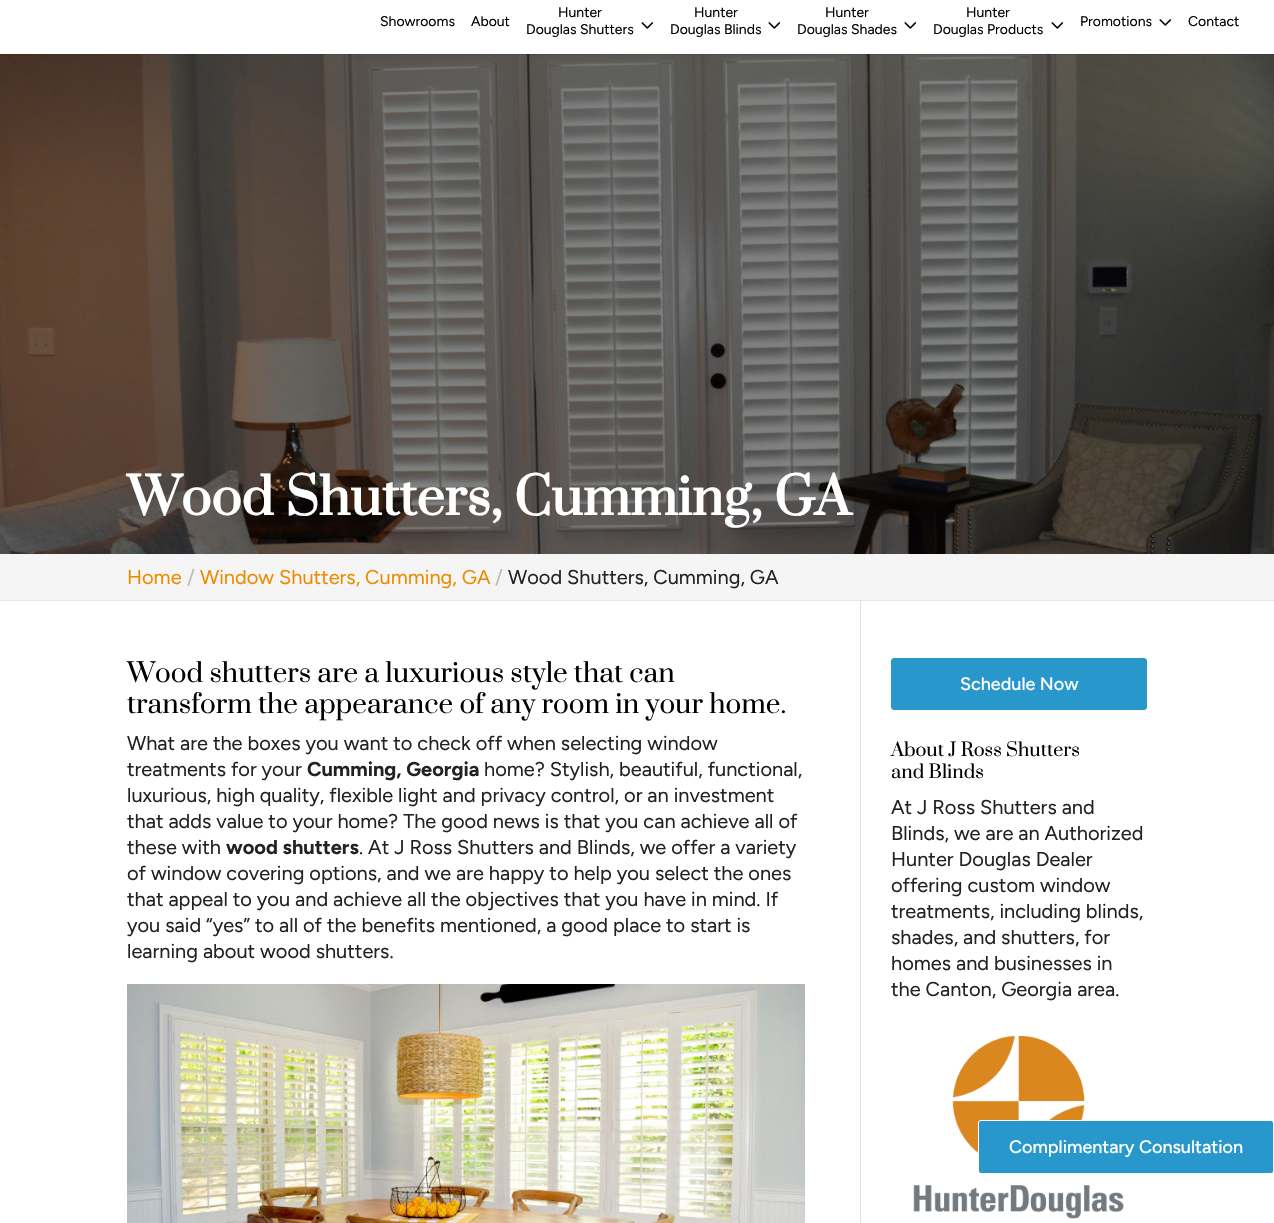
void draw(SkCanvas* canvas) {
    SkPaint paint;
    paint.setAntiAlias(true);
    auto face = [&](const char* family, int weight, float size, bool italic = false) {
        SkFontStyle style(weight, SkFontStyle::kNormal_Width,
            italic ? SkFontStyle::kItalic_Slant : SkFontStyle::kUpright_Slant);
        SkFont result(fontMgr->matchFamilyStyle(family, style), size);
        result.setSubpixel(true);
        return result;
    };
    auto write = [&](const char* s, float x, float y, const SkFont& font, SkColor color) {
        SkPaint ink(SkColor4f::FromColor(color));
        ink.setAntiAlias(true);
        canvas->drawString(s, x, y, font, ink);
    };
    auto block = [&](float x, float y, float w, float h, SkColor color) {
        SkPaint ink(SkColor4f::FromColor(color));
        ink.setAntiAlias(true);
        canvas->drawRect(SkRect::MakeXYWH(x, y, w, h), ink);
    };
    auto paste = [&](const char* path, float x, float y, float w, float h) {
        auto image = SkImages::DeferredFromEncodedData(SkData::MakeFromFileName(path));
        canvas->drawImageRect(image, SkRect::MakeXYWH(x, y, w, h), SkSamplingOptions());
    };
    canvas->clear(SK_ColorWHITE);
    paste("pic2.png", 0, 54, 1274, 500);
    block(0, 54, 1274, 1, SkColorSetARGB(26, 0, 0, 0));
    auto kFont1 = face("Figtree", 400, 14);
    write("Showrooms", 380, 26, kFont1, SK_ColorBLACK);
    write("About", 471, 26, kFont1, SK_ColorBLACK);
    write("Hunter", 558, 17, kFont1, SK_ColorBLACK);
    write("Douglas Shutters", 526, 34, kFont1, SK_ColorBLACK);
    paste("pic1.png", 641, 22, 13, 7);
    write("Hunter", 694, 17, kFont1, SK_ColorBLACK);
    write("Douglas Blinds", 670, 34, kFont1, SK_ColorBLACK);
    paste("pic1.png", 768, 22, 13, 7);
    write("Hunter", 825, 17, kFont1, SK_ColorBLACK);
    write("Douglas Shades", 797, 34, kFont1, SK_ColorBLACK);
    paste("pic1.png", 904, 22, 13, 7);
    write("Hunter", 966, 17, kFont1, SK_ColorBLACK);
    write("Douglas Products", 933, 34, kFont1, SK_ColorBLACK);
    paste("pic1.png", 1051, 22, 13, 7);
    write("Promotions", 1080, 26, kFont1, SK_ColorBLACK);
    paste("pic1.png", 1159, 19, 13, 7);
    write("Contact", 1188, 26, kFont1, SK_ColorBLACK);
    auto kFont2 = face("Prata", 700, 50);
    write("Wood Shutters, Cumming, GA", 127, 515, kFont2, SK_ColorWHITE);
    block(0, 600, 1274, 1, SkColorSetRGB(230, 230, 230));
    block(0, 554, 1274, 46, SkColorSetRGB(245, 245, 245));
    auto kFont3 = face("Figtree", 400, 20);
    write("Home", 127, 584, kFont3, SkColorSetRGB(237, 139, 0));
    write("/", 187, 584, kFont3, SkColorSetRGB(187, 187, 187));
    write("Window Shutters, Cumming, GA", 200, 584, kFont3, SkColorSetRGB(237, 139, 0));
    write("/", 495, 584, kFont3, SkColorSetRGB(187, 187, 187));
    write("Wood Shutters, Cumming, GA", 508, 584, kFont3, SkColorSetRGB(34, 34, 34));
    block(860, 600, 1, 623, SkColorSetRGB(226, 226, 226));
    auto kFont4 = face("Prata", 400, 26);
    write("Wood shutters are a luxurious style that can", 127, 682, kFont4, SK_ColorBLACK);
    write("transform the appearance of any room in your home.", 127, 713, kFont4, SK_ColorBLACK);
    write("What are the boxes you want to check off when selecting window", 127, 750, kFont3, SkColorSetRGB(34, 34, 34));
    write("treatments for your", 127, 776, kFont3, SkColorSetRGB(34, 34, 34));
    auto kFont5 = face("Figtree", 700, 20);
    write("Cumming, Georgia", 307, 776, kFont5, SkColorSetRGB(34, 34, 34));
    write("home? Stylish, beautiful, functional,", 484, 776, kFont3, SkColorSetRGB(34, 34, 34));
    write("luxurious, high quality, flexible light and privacy control, or an investment", 127, 802, kFont3, SkColorSetRGB(34, 34, 34));
    write("that adds value to your home? The good news is that you can achieve all of", 127, 828, kFont3, SkColorSetRGB(34, 34, 34));
    write("these with", 127, 854, kFont3, SkColorSetRGB(34, 34, 34));
    write("wood shutters", 226, 854, kFont5, SkColorSetRGB(34, 34, 34));
    write(". At J Ross Shutters and Blinds, we offer a variety", 359, 854, kFont3, SkColorSetRGB(34, 34, 34));
    write("of window covering options, and we are happy to help you select the ones", 127, 880, kFont3, SkColorSetRGB(34, 34, 34));
    write("that appeal to you and achieve all the objectives that you have in mind. If", 127, 906, kFont3, SkColorSetRGB(34, 34, 34));
    write("you said “yes” to all of the benefits mentioned, a good place to start is", 127, 932, kFont3, SkColorSetRGB(34, 34, 34));
    write("learning about wood shutters.", 127, 958, kFont3, SkColorSetRGB(34, 34, 34));
    paste("pic3.png", 127, 984, 678, 239);
    paint.setColor(SkColorSetRGB(40, 151, 204));
    canvas->drawRoundRect(SkRect::MakeXYWH(891.5f, 658.5f, 255, 51), 2.5f, 2.5f, paint);
    paint.setStyle(SkPaint::kStroke_Style);
    paint.setStrokeWidth(1);
    canvas->drawRoundRect(SkRect::MakeXYWH(891.5f, 658.5f, 255, 51), 2.5f, 2.5f, paint);
    auto kFont6 = face("Figtree", 500, 18);
    write("Schedule Now", 960, 690, kFont6, SK_ColorWHITE);
    auto kFont7 = face("Prata", 400, 18);
    write("About J Ross Shutters", 891, 756, kFont7, SK_ColorBLACK);
    write("and Blinds", 891, 778, kFont7, SK_ColorBLACK);
    write("At J Ross Shutters and", 891, 814, kFont3, SkColorSetRGB(34, 34, 34));
    write("Blinds, we are an Authorized", 891, 840, kFont3, SkColorSetRGB(34, 34, 34));
    write("Hunter Douglas Dealer", 891, 866, kFont3, SkColorSetRGB(34, 34, 34));
    write("offering custom window", 891, 892, kFont3, SkColorSetRGB(34, 34, 34));
    write("treatments, including blinds,", 891, 918, kFont3, SkColorSetRGB(34, 34, 34));
    write("shades, and shutters, for", 891, 944, kFont3, SkColorSetRGB(34, 34, 34));
    write("homes and businesses in", 891, 970, kFont3, SkColorSetRGB(34, 34, 34));
    write("the Canton, Georgia area.", 891, 996, kFont3, SkColorSetRGB(34, 34, 34));
    paste("pic4.png", 913, 1036, 211, 183);
    paint.setStyle(SkPaint::kFill_Style);
    canvas->drawRoundRect(SkRect::MakeXYWH(978.5f, 1120.5f, 295, 53), 2.5f, 2.5f, paint);
    paint.setStyle(SkPaint::kStroke_Style);
    paint.setColor(SK_ColorWHITE);
    canvas->drawRoundRect(SkRect::MakeXYWH(978.5f, 1120.5f, 295, 53), 2.5f, 2.5f, paint);
    write("Complimentary Consultation", 1009, 1153, kFont6, SK_ColorWHITE);
}
